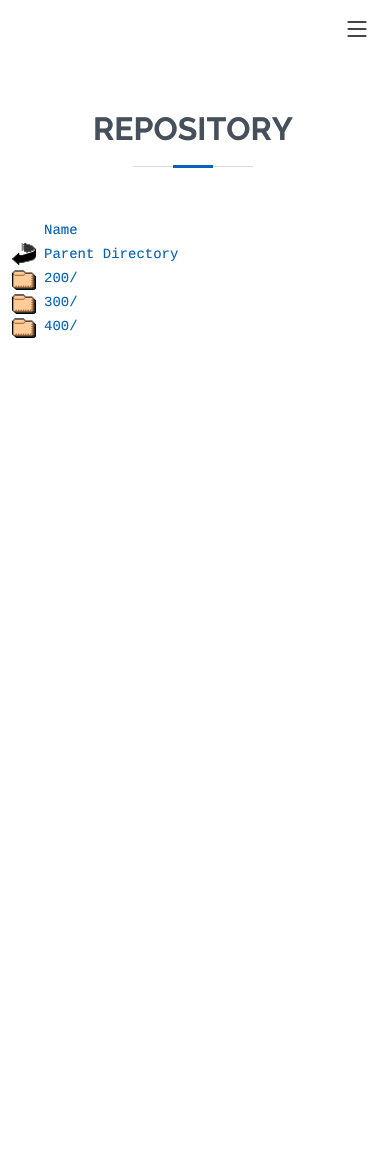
void draw(SkCanvas* canvas) {
    SkPaint paint;
    paint.setAntiAlias(true);
    auto face = [&](const char* family, int weight, float size, bool italic = false) {
        SkFontStyle style(weight, SkFontStyle::kNormal_Width,
            italic ? SkFontStyle::kItalic_Slant : SkFontStyle::kUpright_Slant);
        SkFont result(fontMgr->matchFamilyStyle(family, style), size);
        result.setSubpixel(true);
        return result;
    };
    auto write = [&](const char* s, float x, float y, const SkFont& font, SkColor color) {
        SkPaint ink(SkColor4f::FromColor(color));
        ink.setAntiAlias(true);
        canvas->drawString(s, x, y, font, ink);
    };
    auto block = [&](float x, float y, float w, float h, SkColor color) {
        SkPaint ink(SkColor4f::FromColor(color));
        ink.setAntiAlias(true);
        canvas->drawRect(SkRect::MakeXYWH(x, y, w, h), ink);
    };
    auto paste = [&](const char* path, float x, float y, float w, float h) {
        auto image = SkImages::DeferredFromEncodedData(SkData::MakeFromFileName(path));
        canvas->drawImageRect(image, SkRect::MakeXYWH(x, y, w, h), SkSamplingOptions());
    };
    canvas->clear(SK_ColorWHITE);
    paste("pic1.png", 347, 21, 20, 16);
    auto kFont1 = face("Raleway", 700, 32);
    write("REPOSITORY", 93, 140, kFont1, SkColorSetRGB(69, 80, 91));
    block(133, 166, 120, 1, SkColorSetRGB(221, 221, 221));
    block(173, 165, 40, 3, SkColorSetRGB(5, 99, 187));
    auto kFont2 = face("Liberation Mono", 400, 14);
    write("Name", 44, 234, kFont2, SkColorSetRGB(5, 99, 187));
    paste("pic2.png", 12, 243, 24, 22);
    write("Parent Directory", 44, 258, kFont2, SkColorSetRGB(5, 99, 187));
    paste("pic3.png", 12, 270, 24, 20);
    write("200/", 44, 282, kFont2, SkColorSetRGB(5, 99, 187));
    paste("pic4.png", 12, 294, 24, 20);
    write("300/", 44, 306, kFont2, SkColorSetRGB(5, 99, 187));
    paste("pic5.png", 12, 318, 24, 20);
    write("400/", 44, 330, kFont2, SkColorSetRGB(5, 99, 187));
}
